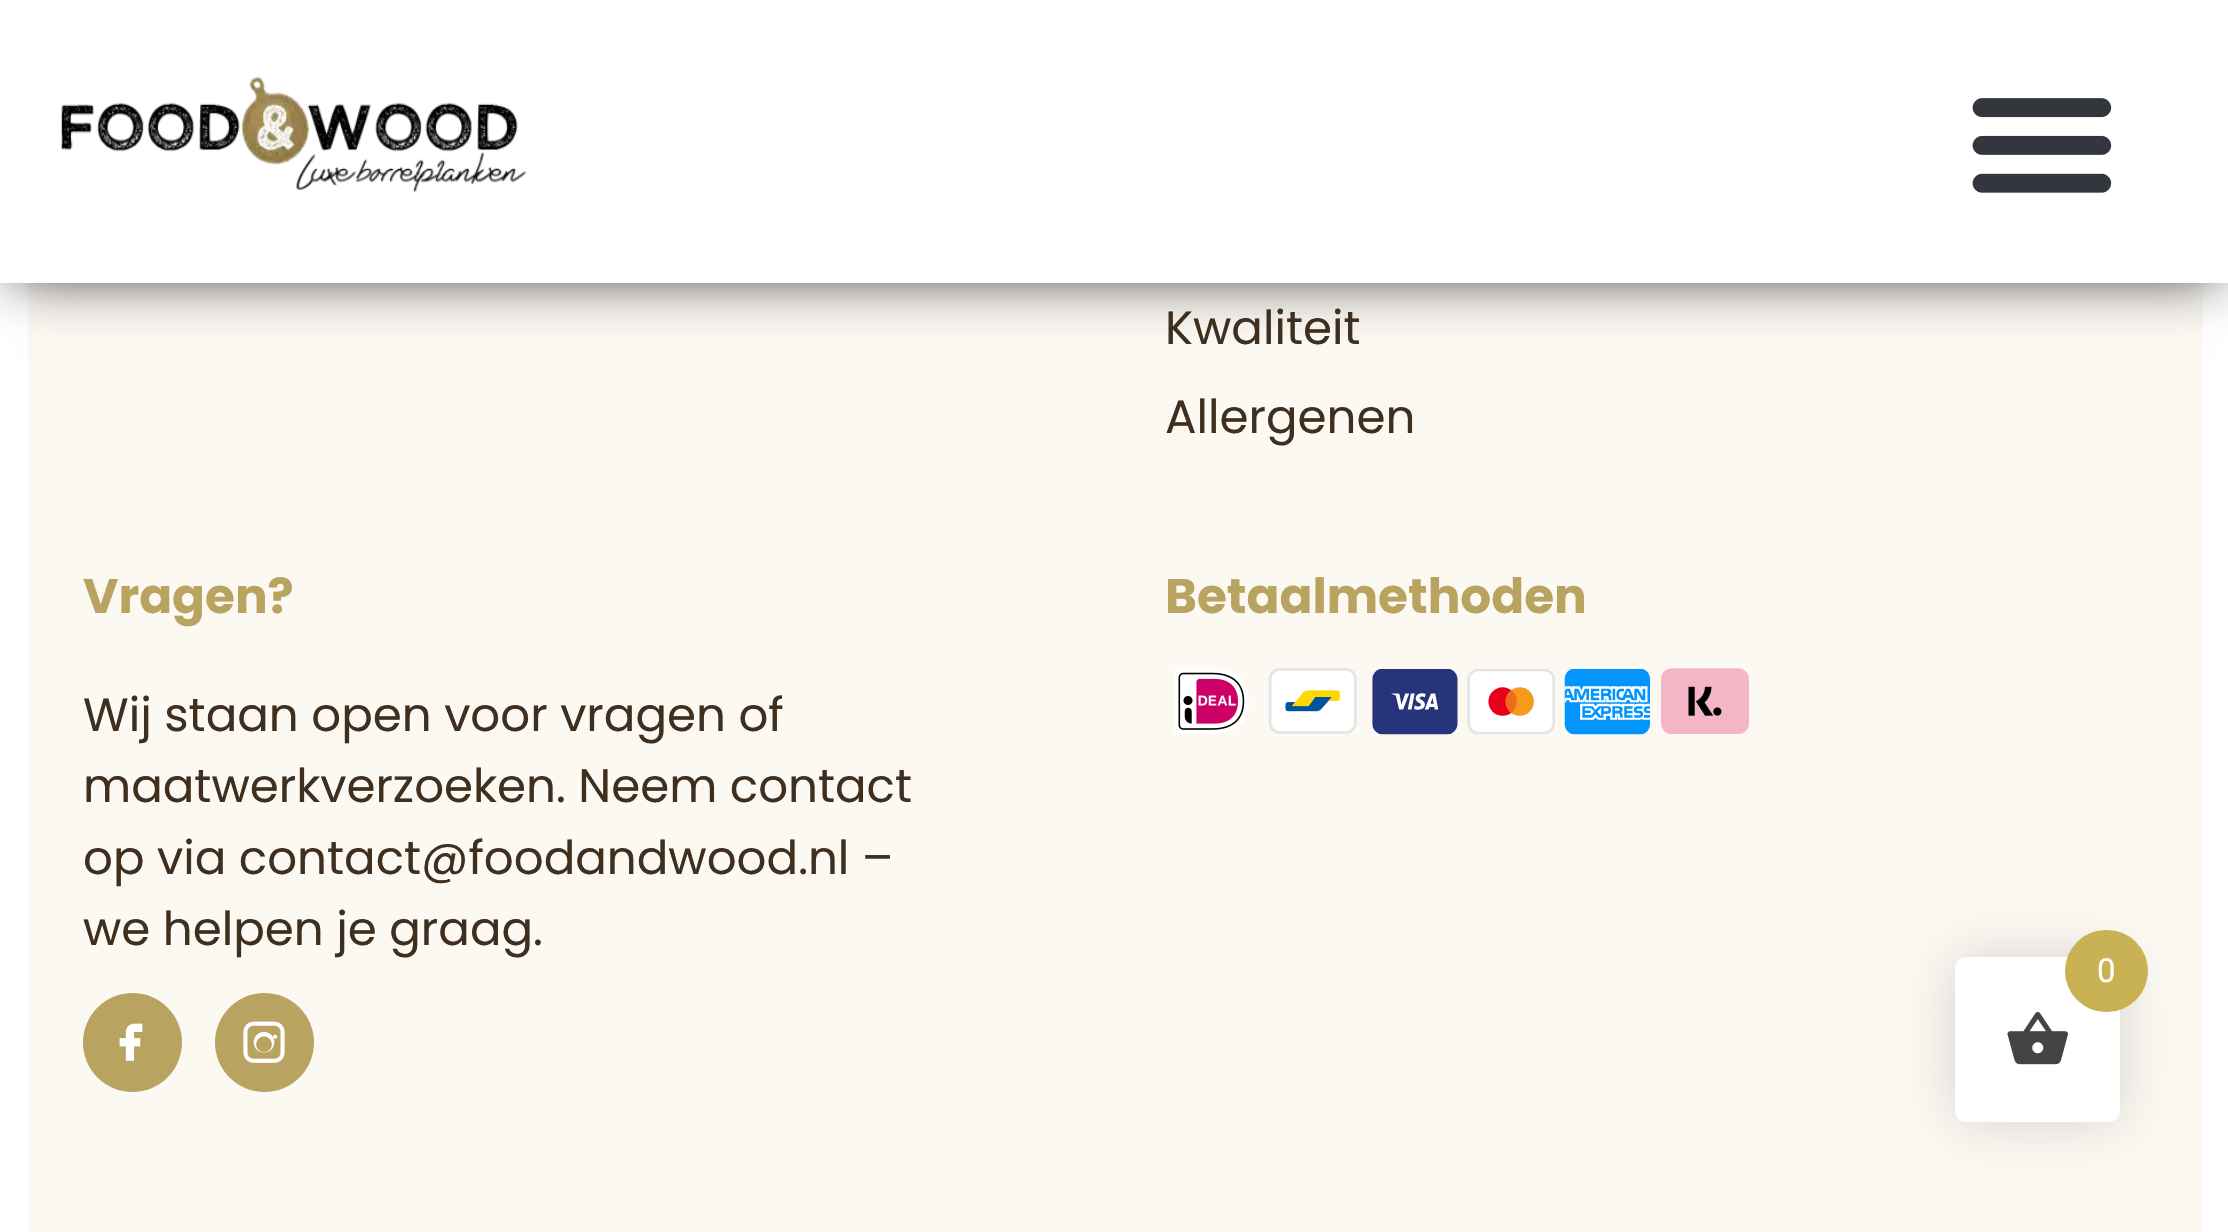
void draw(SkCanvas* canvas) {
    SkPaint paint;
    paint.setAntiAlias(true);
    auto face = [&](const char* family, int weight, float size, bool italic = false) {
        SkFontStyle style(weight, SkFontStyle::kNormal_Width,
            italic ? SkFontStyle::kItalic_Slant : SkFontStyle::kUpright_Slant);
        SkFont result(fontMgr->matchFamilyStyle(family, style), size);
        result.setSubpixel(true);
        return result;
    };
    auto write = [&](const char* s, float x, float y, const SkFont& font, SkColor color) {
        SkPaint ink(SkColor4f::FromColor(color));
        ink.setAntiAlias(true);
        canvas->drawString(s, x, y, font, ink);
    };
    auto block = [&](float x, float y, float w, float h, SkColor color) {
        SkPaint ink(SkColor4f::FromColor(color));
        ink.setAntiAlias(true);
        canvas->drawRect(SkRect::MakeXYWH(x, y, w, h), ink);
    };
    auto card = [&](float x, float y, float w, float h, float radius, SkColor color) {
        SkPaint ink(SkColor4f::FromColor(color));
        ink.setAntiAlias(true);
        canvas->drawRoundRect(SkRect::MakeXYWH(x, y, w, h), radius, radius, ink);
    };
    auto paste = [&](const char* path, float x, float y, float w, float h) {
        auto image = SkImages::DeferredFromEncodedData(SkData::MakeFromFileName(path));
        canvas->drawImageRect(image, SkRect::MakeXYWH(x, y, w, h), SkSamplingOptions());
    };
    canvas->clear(SK_ColorWHITE);
    block(28, 283, 2175, 949, SkColorSetRGB(252, 249, 243));
    paint.setColor(SkColorSetARGB(235, 0, 0, 0));
    paint.setMaskFilter(SkMaskFilter::MakeBlur(kNormal_SkBlurStyle, 29));
    canvas->drawRect(SkRect::MakeXYWH(11, 11, 2208, 261), paint);
    paint.setMaskFilter(nullptr);
    block(0, 0, 2228, 283, SK_ColorWHITE);
    paste("pic1.png", 61, 76, 466, 117);
    paste("pic2.png", 1972, 98, 140, 95);
    auto kFont1 = face("Poppins", 400, 46.75f);
    write("Kwaliteit", 1165, 344, kFont1, SkColorSetRGB(62, 47, 31));
    write("Allergenen", 1165, 433, kFont1, SkColorSetRGB(62, 47, 31));
    auto kFont2 = face("Poppins", 700, 48.5f);
    write("Vragen?", 83, 613, kFont2, SkColorSetRGB(185, 163, 96));
    write("Wij staan open voor vragen of", 83, 731, kFont1, SkColorSetRGB(62, 47, 31));
    write("maatwerkverzoeken. Neem contact", 83, 802, kFont1, SkColorSetRGB(62, 47, 31));
    write("op via contact@foodandwood.nl –", 83, 874, kFont1, SkColorSetRGB(62, 47, 31));
    write("we helpen je graag.", 83, 945, kFont1, SkColorSetRGB(62, 47, 31));
    paint.setColor(SkColorSetRGB(185, 163, 96));
    canvas->drawCircle(132.5f, 1042.5f, 49.5f, paint);
    paste("pic3.png", 119, 1023, 24, 38);
    canvas->drawCircle(264.5f, 1042.5f, 49.5f, paint);
    paste("pic4.png", 243, 1021, 42, 42);
    write("Betaalmethoden", 1165, 613, kFont2, SkColorSetRGB(185, 163, 96));
    paste("pic5.png", 1174, 668, 75, 66);
    paste("pic6.png", 1268, 668, 89, 66);
    paste("pic7.png", 1372, 669, 278, 66);
    paste("pic8.png", 1661, 668, 88, 66);
    paint.setColor(SkColorSetARGB(38, 0, 0, 0));
    paint.setMaskFilter(SkMaskFilter::MakeBlur(kNormal_SkBlurStyle, 27.5f));
    canvas->drawRoundRect(SkRect::MakeXYWH(1955, 957, 165, 165), 11, 11, paint);
    paint.setMaskFilter(nullptr);
    card(1955, 957, 165, 165, 11, SK_ColorWHITE);
    card(2065, 930, 83, 82, 41, SkColorSetRGB(201, 178, 84));
    auto kFont3 = face("Roboto", 400, 33);
    write("0", 2097, 982, kFont3, SK_ColorWHITE);
    paste("pic9.png", 2007, 1012, 61, 53);
}
